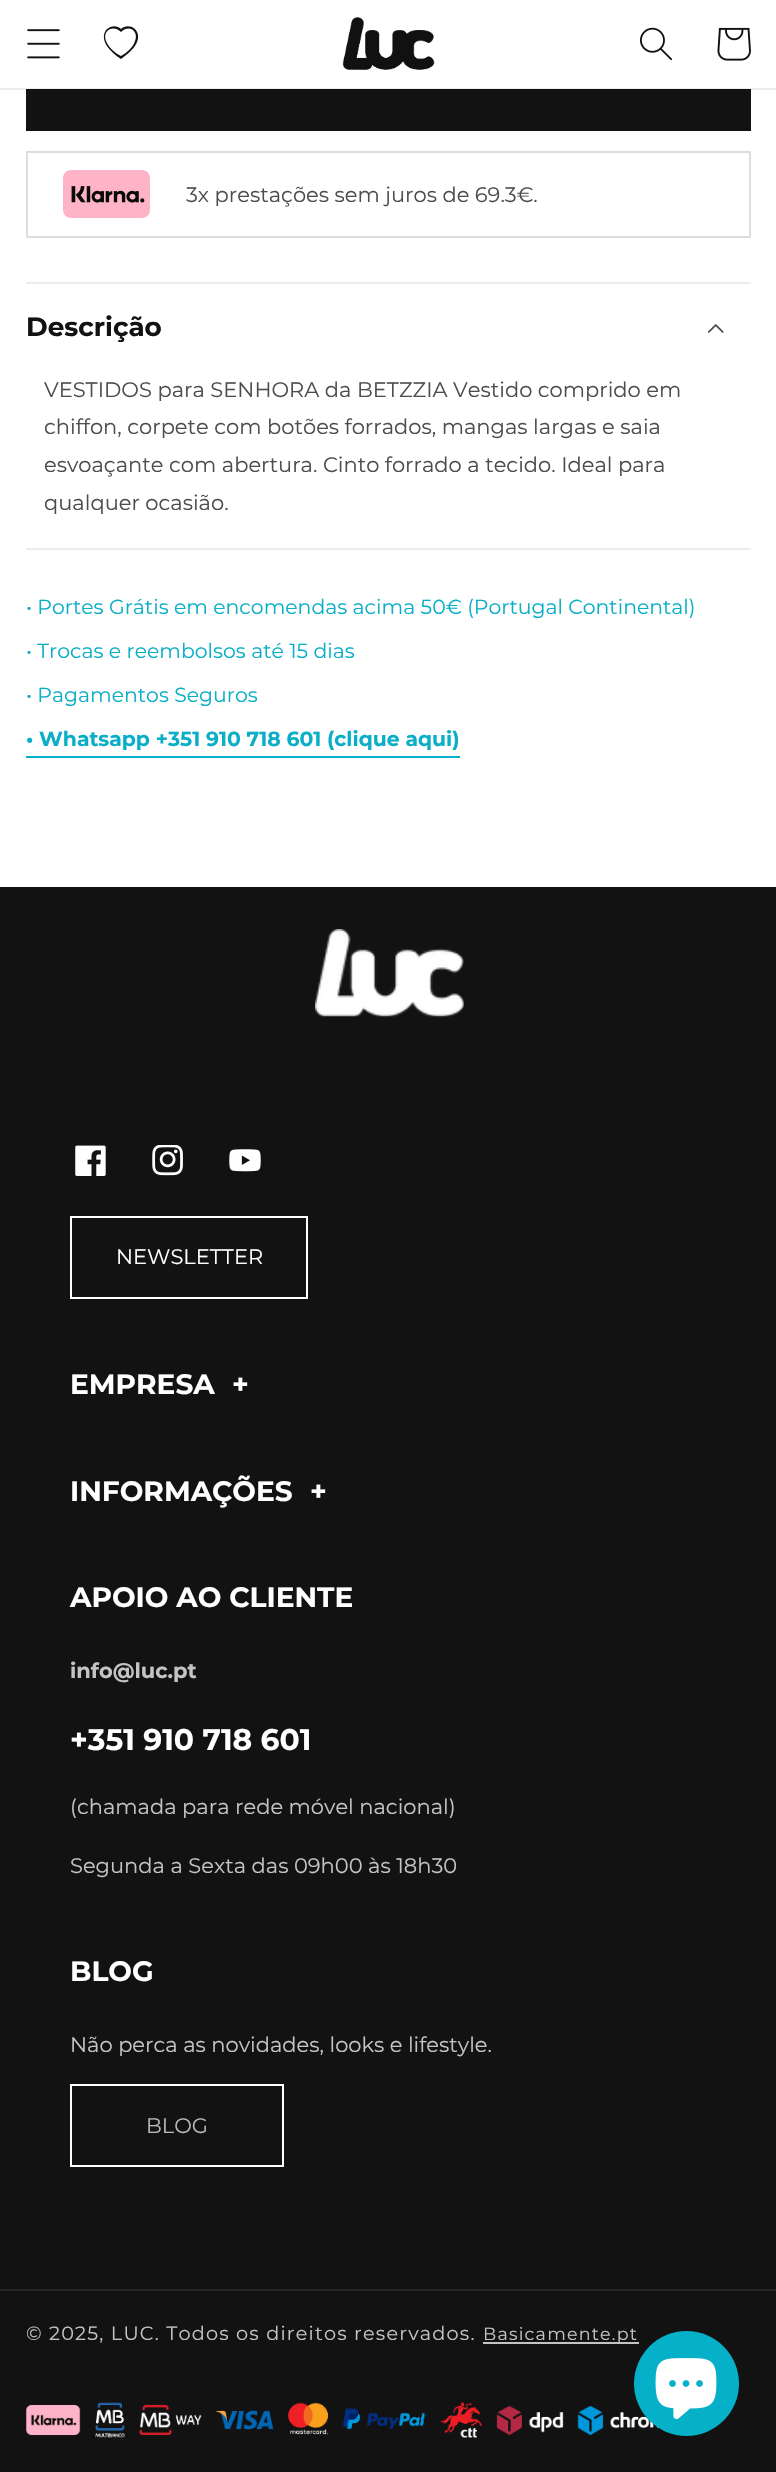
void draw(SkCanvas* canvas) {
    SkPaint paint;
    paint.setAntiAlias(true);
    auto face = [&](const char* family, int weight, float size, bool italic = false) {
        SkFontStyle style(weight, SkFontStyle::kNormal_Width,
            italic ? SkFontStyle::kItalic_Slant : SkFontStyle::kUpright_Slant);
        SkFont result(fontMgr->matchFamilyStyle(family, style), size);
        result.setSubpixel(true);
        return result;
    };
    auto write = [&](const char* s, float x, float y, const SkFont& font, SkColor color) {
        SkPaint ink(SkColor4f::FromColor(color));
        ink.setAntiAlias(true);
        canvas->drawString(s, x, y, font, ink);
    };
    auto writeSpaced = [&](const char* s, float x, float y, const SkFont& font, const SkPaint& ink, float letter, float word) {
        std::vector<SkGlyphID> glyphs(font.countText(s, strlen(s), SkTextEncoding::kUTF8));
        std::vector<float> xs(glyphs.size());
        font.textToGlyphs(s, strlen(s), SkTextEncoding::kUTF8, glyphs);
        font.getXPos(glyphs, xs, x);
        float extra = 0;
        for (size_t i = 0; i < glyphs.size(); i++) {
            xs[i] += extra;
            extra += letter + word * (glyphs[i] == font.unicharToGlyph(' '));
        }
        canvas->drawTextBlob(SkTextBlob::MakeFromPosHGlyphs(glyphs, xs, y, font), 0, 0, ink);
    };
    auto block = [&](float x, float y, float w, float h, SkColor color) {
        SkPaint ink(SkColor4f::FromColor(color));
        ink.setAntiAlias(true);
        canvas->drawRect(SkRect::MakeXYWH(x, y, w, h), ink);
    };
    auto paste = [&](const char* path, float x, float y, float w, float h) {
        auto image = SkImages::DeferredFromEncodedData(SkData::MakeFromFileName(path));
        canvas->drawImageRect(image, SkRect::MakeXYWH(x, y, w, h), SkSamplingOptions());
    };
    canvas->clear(SK_ColorWHITE);
    block(26, 89, 725, 42, SkColorSetRGB(18, 18, 18));
    block(0, 88, 776, 2, SkColorSetARGB(20, 18, 18, 18));
    paste("pic1.png", 27, 29, 33, 30);
    canvas->save();
    canvas->clipRect(SkRect::MakeXYWH(103, 26, 35, 35));
    paint.setColor(SkColorSetRGB(18, 18, 18));
    canvas->drawPath(SkPathBuilder().moveTo(121, 32).cubicTo(113, 24, 102, 31, 106, 41).cubicTo(109, 48, 115, 53, 121, 56).cubicTo(126, 53, 133, 48, 135, 41).cubicTo(139, 31, 129, 24, 121, 32).close().moveTo(121, 59).cubicTo(88, 37, 111, 19, 121, 29).cubicTo(131, 19, 154, 37, 121, 59).close().detach(), paint);
    canvas->restore();
    paste("pic2.png", 342, 17, 93, 53);
    paste("pic3.png", 640, 27, 32, 34);
    paste("pic4.png", 717, 27, 34, 34);
    paint.setStyle(SkPaint::kStroke_Style);
    paint.setStrokeWidth(2);
    paint.setColor(SkColorSetRGB(221, 221, 221));
    canvas->drawRect(SkRect::MakeXYWH(27, 152, 723, 85), paint);
    paste("pic5.png", 63, 170, 87, 48);
    auto kFont1 = face("Montserrat", 400, 21);
    write("3x prestações sem juros de 69.3€.", 186, 202, kFont1, SkColorSetRGB(77, 77, 77));
    block(26, 282, 725, 2, SkColorSetRGB(236, 236, 236));
    block(26, 548, 725, 2, SkColorSetRGB(236, 236, 236));
    auto kFont2 = face("Montserrat", 700, 26.25f);
    write("Descrição", 26, 336, kFont2, SkColorSetRGB(18, 18, 18));
    paste("pic6.png", 708, 324, 16, 9);
    write("VESTIDOS para SENHORA da BETZZIA Vestido comprido em", 44, 397, kFont1, SkColorSetRGB(77, 77, 77));
    write("chiffon, corpete com botões forrados, mangas largas e saia", 44, 434, kFont1, SkColorSetRGB(77, 77, 77));
    write("esvoaçante com abertura. Cinto forrado a tecido. Ideal para", 44, 472, kFont1, SkColorSetRGB(77, 77, 77));
    write("qualquer ocasião.", 44, 510, kFont1, SkColorSetRGB(77, 77, 77));
    auto kFont3 = face("Montserrat", 400, 20.4f);
    write("• Portes Grátis em encomendas acima 50€ (Portugal Continental)", 26, 614, kFont3, SkColorSetRGB(10, 175, 199));
    write("• Trocas e reembolsos até 15 dias", 26, 658, kFont3, SkColorSetRGB(10, 175, 199));
    write("• Pagamentos Seguros", 26, 702, kFont3, SkColorSetRGB(10, 175, 199));
    auto kFont4 = face("Montserrat", 700, 20.4f);
    write("• Whatsapp +351 910 718 601 (clique aqui)", 26, 746, kFont4, SkColorSetRGB(10, 175, 199));
    block(26, 756, 434, 2, SkColorSetRGB(10, 175, 199));
    block(0, 887, 776, 1585, SkColorSetRGB(18, 18, 18));
    paste("pic7.png", 315, 929, 149, 88);
    paste("pic8.png", 75, 1145, 31, 31);
    paste("pic9.png", 152, 1145, 31, 31);
    paste("pic10.png", 229, 1149, 32, 23);
    paint.setColor(SK_ColorWHITE);
    canvas->drawRect(SkRect::MakeXYWH(71, 1217, 236, 81), paint);
    write("NEWSLETTER", 116, 1264, kFont1, SK_ColorWHITE);
    auto kFont5 = face("Montserrat", 700, 28);
    write("EMPRESA", 70, 1394, kFont5, SK_ColorWHITE);
    write("+", 232, 1394, kFont5, SK_ColorWHITE);
    write("INFORMAÇÕES", 70, 1501, kFont5, SK_ColorWHITE);
    write("+", 310, 1501, kFont5, SK_ColorWHITE);
    write("APOIO AO CLIENTE", 70, 1607, kFont5, SK_ColorWHITE);
    auto kFont6 = face("Montserrat", 700, 21);
    write("info@luc.pt", 70, 1678, kFont6, SkColorSetRGB(196, 196, 196));
    auto kFont7 = face("Montserrat", 700, 29.75f);
    write("+351 910 718 601", 70, 1750, kFont7, SK_ColorWHITE);
    write("(chamada para rede móvel nacional)", 70, 1814, kFont1, SkColorSetRGB(196, 196, 196));
    write("Segunda a Sexta das 09h00 às 18h30", 70, 1873, kFont1, SkColorSetRGB(196, 196, 196));
    write("BLOG", 70, 1981, kFont5, SK_ColorWHITE);
    write("Não perca as novidades, looks e lifestyle.", 70, 2052, kFont1, SkColorSetRGB(196, 196, 196));
    canvas->drawRect(SkRect::MakeXYWH(71, 2085, 212, 81), paint);
    write("BLOG", 146, 2133, kFont1, SkColorSetRGB(184, 184, 184));
    block(0, 2289, 776, 2, SkColorSetRGB(37, 37, 37));
    auto kFont8 = face("Montserrat", 400, 19.25f);
    paint.setStyle(SkPaint::kFill_Style);
    paint.setColor(SkColorSetRGB(196, 196, 196));
    writeSpaced("© 2025, LUC. Todos os direitos reservados.", 26, 2340, kFont8, paint, 1.2f, 0);
    block(483, 2342, 156, 2, SkColorSetRGB(196, 196, 196));
    auto kFont9 = face("Montserrat", 400, 17.5f);
    writeSpaced("Basicamente.pt", 483, 2340, kFont9, paint, 1.2f, 0);
    paste("pic11.png", 26, 2402, 633, 36);
    paint.setColor(SkColorSetRGB(5, 176, 200));
    canvas->drawCircle(686.5f, 2383.5f, 52.5f, paint);
    paste("pic12.png", 655, 2358, 62, 61);
}
